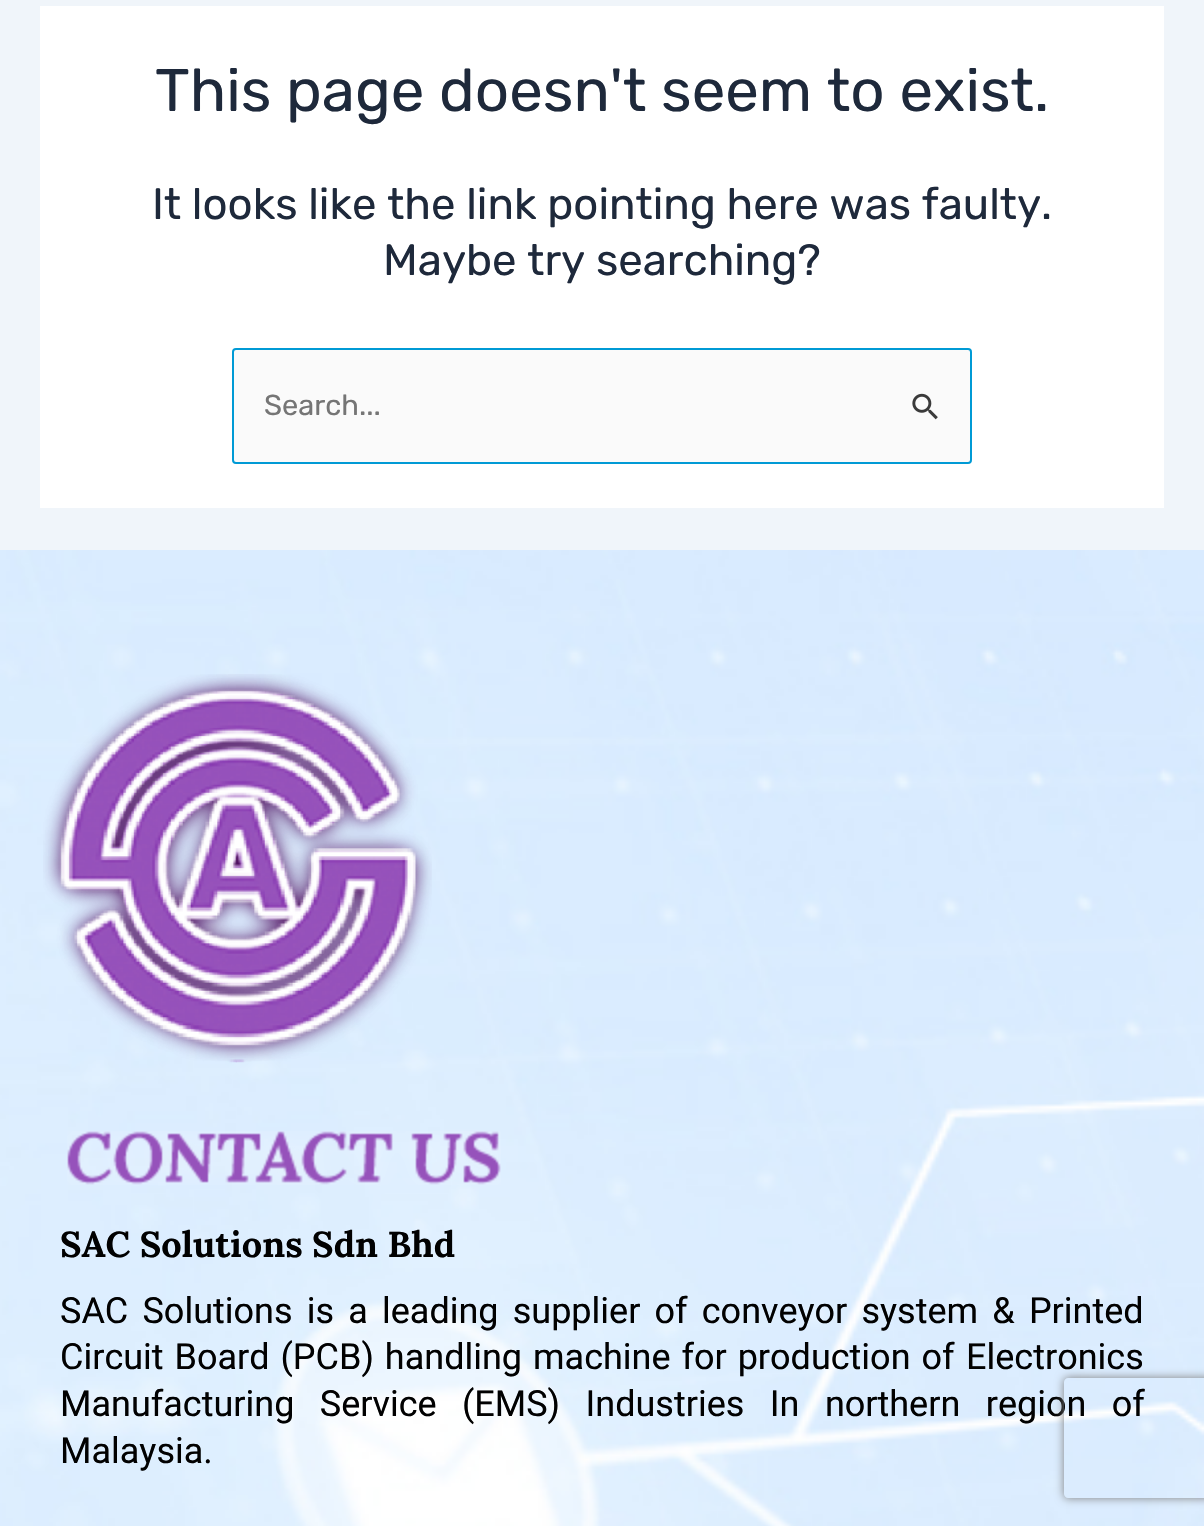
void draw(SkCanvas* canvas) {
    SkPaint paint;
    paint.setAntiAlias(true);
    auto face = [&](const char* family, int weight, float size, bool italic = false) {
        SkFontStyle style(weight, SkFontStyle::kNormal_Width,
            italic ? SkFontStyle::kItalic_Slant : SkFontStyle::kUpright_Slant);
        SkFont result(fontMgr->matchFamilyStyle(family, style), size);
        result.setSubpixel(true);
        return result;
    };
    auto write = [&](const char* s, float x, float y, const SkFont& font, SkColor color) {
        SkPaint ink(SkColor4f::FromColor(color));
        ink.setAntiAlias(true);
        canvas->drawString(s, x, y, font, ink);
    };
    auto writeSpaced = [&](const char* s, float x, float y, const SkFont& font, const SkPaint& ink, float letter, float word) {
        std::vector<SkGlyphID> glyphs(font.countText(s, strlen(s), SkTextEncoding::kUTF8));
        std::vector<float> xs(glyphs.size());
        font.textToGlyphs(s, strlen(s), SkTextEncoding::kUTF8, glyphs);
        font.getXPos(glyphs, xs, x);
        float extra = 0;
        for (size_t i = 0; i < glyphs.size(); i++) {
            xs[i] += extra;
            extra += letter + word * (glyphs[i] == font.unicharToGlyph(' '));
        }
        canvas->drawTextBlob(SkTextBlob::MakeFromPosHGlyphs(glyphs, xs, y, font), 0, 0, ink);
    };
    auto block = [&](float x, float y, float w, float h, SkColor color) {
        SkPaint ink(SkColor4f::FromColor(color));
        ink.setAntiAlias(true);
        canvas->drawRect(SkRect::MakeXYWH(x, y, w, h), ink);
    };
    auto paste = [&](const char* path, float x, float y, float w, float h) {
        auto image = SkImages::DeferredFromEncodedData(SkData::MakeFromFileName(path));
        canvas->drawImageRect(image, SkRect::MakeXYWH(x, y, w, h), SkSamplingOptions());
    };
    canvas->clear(SkColorSetRGB(240, 245, 250));
    block(40, 6, 1124, 502, SK_ColorWHITE);
    auto kFont1 = face("Rubik", 400, 60);
    write("This page doesn't seem to exist.", 155, 111, kFont1, SkColorSetRGB(30, 41, 59));
    auto kFont2 = face("Rubik", 400, 43.75f);
    write("It looks like the link pointing here was faulty.", 152, 219, kFont2, SkColorSetRGB(30, 41, 59));
    write("Maybe try searching?", 383, 275, kFont2, SkColorSetRGB(30, 41, 59));
    paint.setColor(SkColorSetRGB(250, 250, 250));
    canvas->drawRoundRect(SkRect::MakeXYWH(233, 349, 738, 114), 3, 3, paint);
    paint.setStyle(SkPaint::kStroke_Style);
    paint.setStrokeWidth(2);
    paint.setColor(SkColorSetRGB(0, 154, 213));
    canvas->drawRoundRect(SkRect::MakeXYWH(233, 349, 738, 114), 3, 3, paint);
    auto kFont3 = face("Rubik", 400, 29);
    write("Search...", 264, 415, kFont3, SkColorSetRGB(117, 117, 117));
    paste("pic1.png", 912, 393, 26, 27);
    paste("pic2.png", 0, 550, 1204, 976);
    paste("pic3.png", 43, 674, 389, 389);
    paste("pic4.png", 67, 1131, 434, 54);
    auto kFont4 = face("Lora", 700, 36);
    write("SAC Solutions Sdn Bhd", 60, 1257, kFont4, SkColorSetRGB(1, 1, 1));
    auto kFont5 = face("Roboto", 400, 36);
    paint.setStyle(SkPaint::kFill_Style);
    paint.setColor(SkColorSetRGB(1, 1, 1));
    writeSpaced("SAC Solutions is a leading supplier of conveyor system & Printed", 60, 1323, kFont5, paint, 0, 5.25f);
    writeSpaced("Circuit Board (PCB) handling machine for production of", 60, 1369, kFont5, paint, 0, 2);
    write("Electronics", 966, 1369, kFont5, SkColorSetRGB(1, 1, 1));
    writeSpaced("Manufacturing Service (EMS) Industries In northern region of", 60, 1416, kFont5, paint, 0, 16.5f);
    write("Malaysia.", 60, 1463, kFont5, SkColorSetRGB(1, 1, 1));
    canvas->save();
    canvas->clipPath(SkPathBuilder(SkPathFillType::kEvenOdd).moveTo(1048, 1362).lineTo(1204, 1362).lineTo(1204, 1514).lineTo(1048, 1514).close().moveTo(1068, 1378).lineTo(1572, 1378).cubicTo(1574, 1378, 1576, 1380, 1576, 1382).lineTo(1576, 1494).cubicTo(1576, 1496, 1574, 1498, 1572, 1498).lineTo(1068, 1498).cubicTo(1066, 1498, 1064, 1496, 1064, 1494).lineTo(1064, 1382).cubicTo(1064, 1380, 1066, 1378, 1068, 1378).close().detach(), true);
    paint.setColor(SkColorSetRGB(128, 128, 128));
    paint.setMaskFilter(SkMaskFilter::MakeBlur(kNormal_SkBlurStyle, 5));
    canvas->drawRoundRect(SkRect::MakeXYWH(1064, 1378, 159, 120), 4, 4, paint);
    paint.setMaskFilter(nullptr);
    canvas->restore();
}
